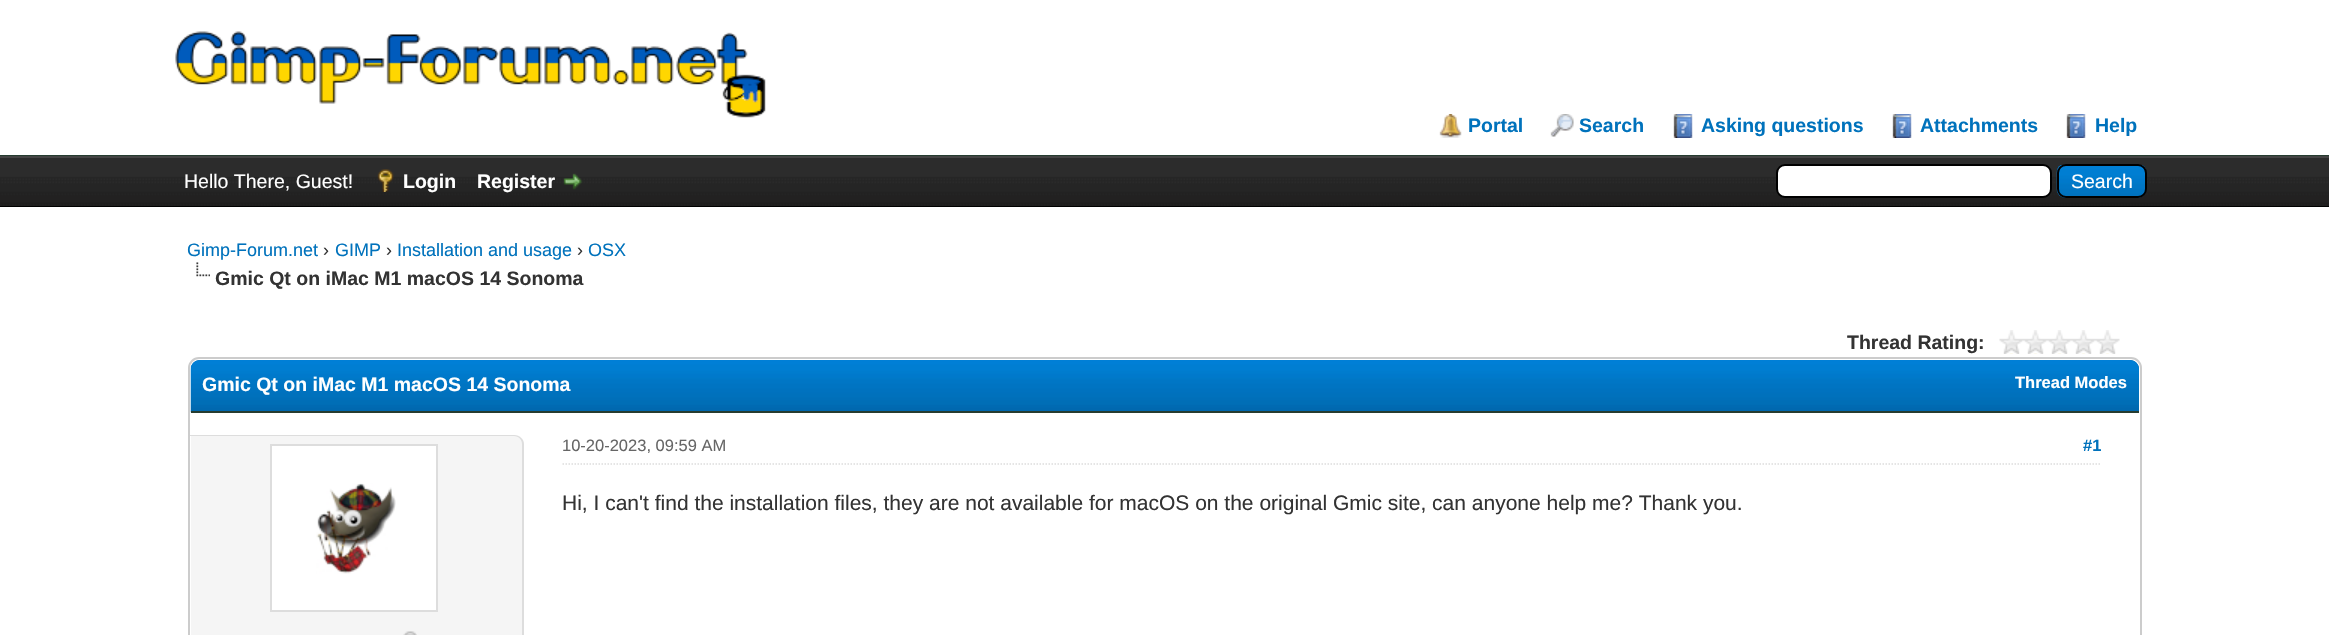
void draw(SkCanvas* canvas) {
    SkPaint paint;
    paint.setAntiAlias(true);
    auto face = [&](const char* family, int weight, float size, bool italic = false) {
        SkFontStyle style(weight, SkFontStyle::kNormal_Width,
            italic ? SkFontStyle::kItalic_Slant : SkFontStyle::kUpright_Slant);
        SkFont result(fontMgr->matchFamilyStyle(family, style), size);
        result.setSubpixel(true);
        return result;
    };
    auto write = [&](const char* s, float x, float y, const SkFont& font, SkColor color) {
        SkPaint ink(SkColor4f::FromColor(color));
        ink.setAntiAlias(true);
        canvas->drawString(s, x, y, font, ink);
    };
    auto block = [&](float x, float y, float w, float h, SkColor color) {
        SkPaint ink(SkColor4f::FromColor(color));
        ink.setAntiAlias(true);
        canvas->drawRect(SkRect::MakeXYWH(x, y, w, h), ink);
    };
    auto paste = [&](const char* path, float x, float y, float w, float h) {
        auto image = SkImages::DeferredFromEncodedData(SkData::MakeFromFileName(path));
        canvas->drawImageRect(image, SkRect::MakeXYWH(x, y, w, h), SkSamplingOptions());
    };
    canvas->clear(SK_ColorWHITE);
    block(0, 155, 2329, 1, SkColorSetRGB(38, 60, 48));
    paste("pic1.png", 175, 31, 591, 87);
    paste("pic2.png", 1439, 114, 23, 24);
    auto kFont1 = face("Liberation Sans", 700, 19.5f);
    write("Portal", 1468, 132, kFont1, SkColorSetRGB(0, 114, 188));
    paste("pic3.png", 1550, 114, 24, 23);
    write("Search", 1579, 132, kFont1, SkColorSetRGB(0, 114, 188));
    paste("pic4.png", 1673, 114, 20, 24);
    write("Asking questions", 1701, 132, kFont1, SkColorSetRGB(0, 114, 188));
    paste("pic5.png", 1892, 114, 20, 24);
    write("Attachments", 1920, 132, kFont1, SkColorSetRGB(0, 114, 188));
    paste("pic4.png", 2066, 114, 20, 24);
    write("Help", 2095, 132, kFont1, SkColorSetRGB(0, 114, 188));
    paste("pic6.png", 0, 158, 2329, 48);
    block(0, 156, 2329, 2, SkColorSetRGB(68, 68, 68));
    block(0, 206, 2329, 1, SK_ColorBLACK);
    auto kFont2 = face("Liberation Sans", 400, 19.5f);
    write("Hello There, Guest!", 184, 188, kFont2, SK_ColorWHITE);
    paste("pic7.png", 377, 169, 17, 23);
    write("Login", 403, 188, kFont1, SK_ColorWHITE);
    write("Register", 477, 188, kFont1, SK_ColorWHITE);
    paste("pic8.png", 563, 173, 20, 17);
    paint.setColor(SK_ColorWHITE);
    canvas->drawRoundRect(SkRect::MakeXYWH(1777, 165, 274, 32), 8, 8, paint);
    paint.setStyle(SkPaint::kStroke_Style);
    paint.setStrokeWidth(2);
    paint.setColor(SK_ColorBLACK);
    canvas->drawRoundRect(SkRect::MakeXYWH(1777, 165, 274, 32), 8, 8, paint);
    paste("pic9.png", 2056, 165, 91, 33);
    canvas->drawRoundRect(SkRect::MakeXYWH(2058, 165, 88, 32), 8, 8, paint);
    write("Search", 2071, 188, kFont2, SK_ColorWHITE);
    auto kFont3 = face("Liberation Sans", 400, 18);
    write("Gimp-Forum.net", 187, 256, kFont3, SkColorSetRGB(0, 114, 188));
    write("›", 323, 256, kFont3, SkColorSetRGB(51, 51, 51));
    write("GIMP", 335, 256, kFont3, SkColorSetRGB(0, 114, 188));
    write("›", 386, 256, kFont3, SkColorSetRGB(51, 51, 51));
    write("Installation and usage", 397, 256, kFont3, SkColorSetRGB(0, 114, 188));
    write("›", 577, 256, kFont3, SkColorSetRGB(51, 51, 51));
    write("OSX", 588, 256, kFont3, SkColorSetRGB(0, 114, 188));
    paste("pic10.png", 196, 262, 14, 15);
    write("Gmic Qt on iMac M1 macOS 14 Sonoma", 215, 285, kFont1, SkColorSetRGB(51, 51, 51));
    write("Thread Rating:", 1847, 349, kFont1, SkColorSetRGB(51, 51, 51));
    paste("pic11.png", 1999, 330, 121, 24);
    paint.setColor(SkColorSetRGB(204, 204, 204));
    canvas->drawRoundRect(SkRect::MakeXYWH(189, 358, 1952, 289), 10, 10, paint);
    paint.setStyle(SkPaint::kFill_Style);
    paint.setColor(SkColorSetRGB(0, 102, 162));
    canvas->drawPath(SkPathBuilder().moveTo(200, 360).lineTo(2130, 360).cubicTo(2135, 360, 2139, 364, 2139, 369).lineTo(2139, 413).lineTo(191, 413).lineTo(191, 369).cubicTo(191, 364, 195, 360, 200, 360).close().detach(), paint);
    paste("pic12.png", 190, 360, 1949, 53);
    block(191, 411, 1948, 2, SkColorSetRGB(38, 60, 48));
    write("Gmic Qt on iMac M1 macOS 14 Sonoma", 202, 391, kFont1, SK_ColorWHITE);
    auto kFont4 = face("Liberation Sans", 700, 16.5f);
    write("Thread Modes", 2015, 388, kFont4, SK_ColorWHITE);
    paint.setColor(SkColorSetRGB(245, 245, 245));
    canvas->drawPath(SkPathBuilder().moveTo(191, 435).lineTo(515, 435).cubicTo(520, 435, 524, 439, 524, 444).lineTo(524, 635).cubicTo(524, 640, 520, 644, 515, 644).lineTo(191, 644).close().detach(), paint);
    paint.setColor(SkColorSetRGB(221, 221, 221));
    canvas->drawPath(SkPathBuilder(SkPathFillType::kEvenOdd).moveTo(190, 435).lineTo(514, 435).cubicTo(519, 435, 524, 439, 524, 444).lineTo(524, 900).cubicTo(524, 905, 519, 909, 514, 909).lineTo(190, 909).close().moveTo(190, 436).lineTo(514, 436).cubicTo(519, 436, 522, 440, 522, 444).lineTo(522, 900).cubicTo(522, 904, 519, 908, 514, 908).lineTo(190, 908).close().detach(), paint);
    paint.setColor(SK_ColorWHITE);
    canvas->drawRect(SkRect::MakeXYWH(271, 445, 166, 166), paint);
    paint.setStyle(SkPaint::kStroke_Style);
    paint.setColor(SkColorSetRGB(221, 221, 221));
    canvas->drawRect(SkRect::MakeXYWH(271, 445, 166, 166), paint);
    paste("pic13.png", 316, 483, 80, 91);
    paste("pic14.png", 403, 631, 14, 4);
    paint.setStrokeWidth(1.5f);
    paint.setPathEffect(SkDashPathEffect::Make({{1.5f, 1.5f}}, 0));
    canvas->drawPath(SkPathBuilder().moveTo(562.5f, 464).lineTo(2101.5f, 464).detach(), paint);
    paint.setPathEffect(nullptr);
    auto kFont5 = face("Liberation Sans", 400, 16.5f);
    write("10-20-2023, 09:59 AM", 562, 451, kFont5, SkColorSetRGB(102, 102, 102));
    write("#1", 2083, 451, kFont4, SkColorSetRGB(0, 114, 188));
    auto kFont6 = face("Liberation Sans", 400, 21);
    write("Hi, I can't find the installation files, they are not available for macOS on the original Gmic site, can anyone help me? Thank you.", 562, 510, kFont6, SkColorSetRGB(51, 51, 51));
}
